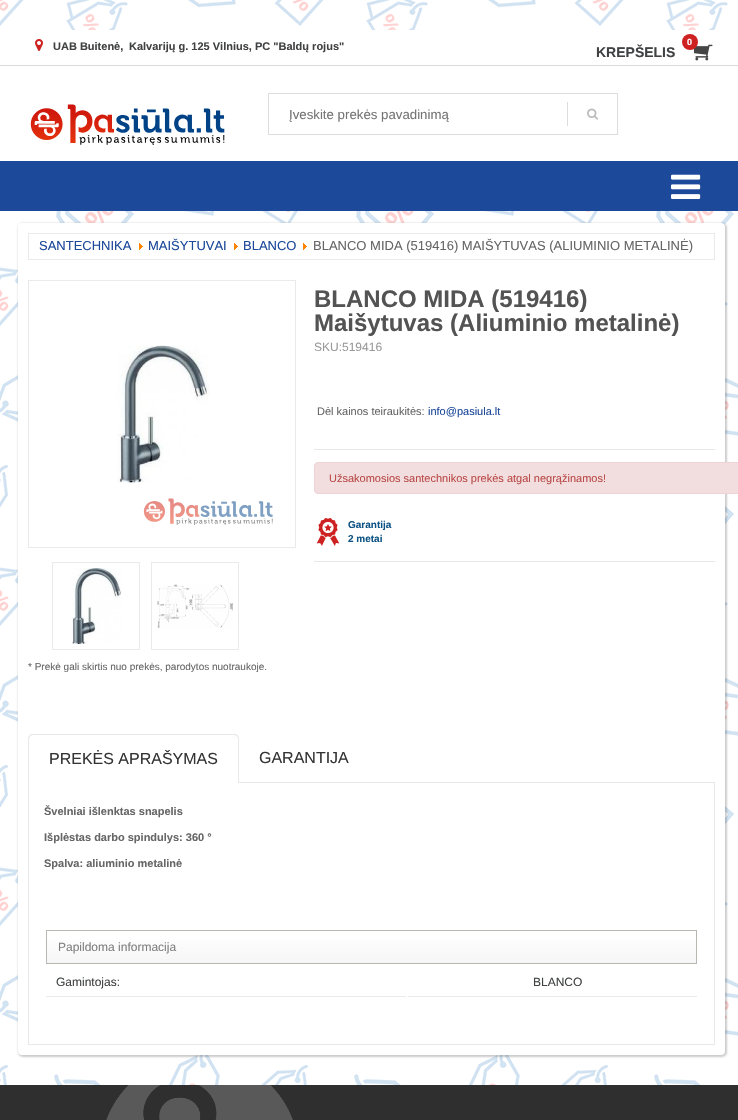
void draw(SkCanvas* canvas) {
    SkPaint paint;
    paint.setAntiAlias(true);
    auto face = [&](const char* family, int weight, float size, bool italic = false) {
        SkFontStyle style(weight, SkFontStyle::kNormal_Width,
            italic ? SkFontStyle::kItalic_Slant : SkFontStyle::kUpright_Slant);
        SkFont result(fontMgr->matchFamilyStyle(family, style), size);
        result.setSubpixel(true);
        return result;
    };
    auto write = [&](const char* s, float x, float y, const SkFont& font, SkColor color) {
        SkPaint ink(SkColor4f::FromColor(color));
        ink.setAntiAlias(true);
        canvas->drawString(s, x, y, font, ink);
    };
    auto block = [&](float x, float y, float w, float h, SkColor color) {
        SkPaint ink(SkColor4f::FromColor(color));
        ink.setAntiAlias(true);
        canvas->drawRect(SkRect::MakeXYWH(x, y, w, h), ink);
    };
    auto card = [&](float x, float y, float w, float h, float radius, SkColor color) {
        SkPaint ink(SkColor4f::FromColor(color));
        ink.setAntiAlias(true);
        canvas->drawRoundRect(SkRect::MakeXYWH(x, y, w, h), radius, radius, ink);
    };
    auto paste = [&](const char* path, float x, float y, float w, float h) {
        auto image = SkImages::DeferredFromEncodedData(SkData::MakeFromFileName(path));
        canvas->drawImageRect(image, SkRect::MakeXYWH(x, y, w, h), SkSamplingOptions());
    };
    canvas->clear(SK_ColorWHITE);
    paste("pic1.png", 0, 0, 738, 1085);
    block(35, 30, 679, 35, SK_ColorWHITE);
    block(0, 65, 738, 1, SkColorSetRGB(218, 218, 218));
    paste("pic2.png", 35, 39, 8, 12);
    auto kFont1 = face("Liberation Sans", 700, 11);
    write("UAB Buitenė,", 53, 50, kFont1, SkColorSetRGB(64, 65, 66));
    write("Kalvarijų g. 125 Vilnius, PC \"Baldų rojus\"", 129, 50, kFont1, SkColorSetRGB(64, 65, 66));
    block(0, 66, 738, 95, SK_ColorWHITE);
    paste("pic3.png", 693, 44, 20, 17);
    paint.setColor(SkColorSetRGB(205, 33, 34));
    canvas->drawCircle(690, 42, 8, paint);
    auto kFont2 = face("Liberation Sans", 700, 9);
    write("0", 687, 45, kFont2, SK_ColorWHITE);
    auto kFont3 = face("Liberation Sans", 700, 14);
    write("KREPŠELIS", 596, 57, kFont3, SkColorSetRGB(64, 65, 66));
    paste("pic4.png", 30, 104, 195, 41);
    paint.setStyle(SkPaint::kStroke_Style);
    paint.setStrokeWidth(1);
    paint.setColor(SkColorSetRGB(221, 221, 221));
    canvas->drawRect(SkRect::MakeXYWH(268.5f, 93.5f, 349, 41), paint);
    auto kFont4 = face("Liberation Sans", 400, 13.25f);
    write("Įveskite prekės pavadinimą", 289, 119, kFont4, SkColorSetRGB(117, 117, 117));
    block(567, 102, 1, 24, SkColorSetRGB(221, 221, 221));
    paste("pic5.png", 587, 108, 11, 12);
    block(0, 161, 738, 50, SkColorSetRGB(29, 73, 154));
    paste("pic6.png", 671, 174, 30, 25);
    paint.setStyle(SkPaint::kFill_Style);
    paint.setColor(SkColorSetARGB(51, 0, 0, 0));
    paint.setMaskFilter(SkMaskFilter::MakeBlur(kNormal_SkBlurStyle, 1));
    canvas->drawRoundRect(SkRect::MakeXYWH(18, 223, 709, 834), 5, 5, paint);
    paint.setMaskFilter(nullptr);
    card(18, 223, 707, 832, 4, SK_ColorWHITE);
    paint.setStyle(SkPaint::kStroke_Style);
    paint.setColor(SkColorSetRGB(234, 234, 234));
    canvas->drawRect(SkRect::MakeXYWH(28.5f, 233.5f, 686, 26), paint);
    auto kFont5 = face("Liberation Sans", 400, 13);
    write("SANTECHNIKA", 39, 250, kFont5, SkColorSetRGB(29, 73, 154));
    paste("pic7.png", 139, 243, 4, 7);
    write("MAIŠYTUVAI", 148, 250, kFont5, SkColorSetRGB(29, 73, 154));
    paste("pic7.png", 234, 243, 4, 7);
    write("BLANCO", 243, 250, kFont5, SkColorSetRGB(29, 73, 154));
    paste("pic7.png", 303, 243, 4, 7);
    write("BLANCO MIDA (519416) MAIŠYTUVAS (ALIUMINIO METALINĖ)", 313, 250, kFont5, SkColorSetRGB(102, 102, 102));
    auto kFont6 = face("Liberation Sans", 700, 24);
    write("BLANCO MIDA (519416)", 314, 307, kFont6, SkColorSetRGB(83, 83, 83));
    write("Maišytuvas (Aliuminio metalinė)", 314, 331, kFont6, SkColorSetRGB(83, 83, 83));
    auto kFont7 = face("Liberation Sans", 400, 12);
    write("SKU:519416", 314, 351, kFont7, SkColorSetRGB(153, 153, 153));
    auto kFont8 = face("Liberation Sans", 400, 11);
    write("Dėl kainos teiraukitės:", 317, 415, kFont8, SkColorSetRGB(102, 102, 102));
    write("info@pasiula.lt", 428, 415, kFont8, SkColorSetRGB(29, 73, 154));
    block(314, 449, 401, 1, SkColorSetRGB(232, 232, 232));
    block(314, 561, 401, 1, SkColorSetRGB(232, 232, 232));
    paint.setStyle(SkPaint::kFill_Style);
    paint.setColor(SkColorSetRGB(242, 222, 222));
    canvas->drawRoundRect(SkRect::MakeXYWH(314.5f, 462.5f, 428, 31), 3.5f, 3.5f, paint);
    paint.setStyle(SkPaint::kStroke_Style);
    paint.setColor(SkColorSetRGB(238, 211, 215));
    canvas->drawRoundRect(SkRect::MakeXYWH(314.5f, 462.5f, 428, 31), 3.5f, 3.5f, paint);
    write("Užsakomosios santechnikos prekės atgal negrąžinamos!", 329, 482, kFont8, SkColorSetRGB(185, 74, 72));
    paste("pic8.png", 316, 518, 24, 28);
    auto kFont9 = face("Liberation Sans", 700, 10);
    write("Garantija", 348, 528, kFont9, SkColorSetRGB(13, 83, 133));
    write("2 metai", 348, 542, kFont9, SkColorSetRGB(13, 83, 133));
    paint.setColor(SkColorSetRGB(234, 234, 234));
    canvas->drawRect(SkRect::MakeXYWH(28.5f, 280.5f, 267, 267), paint);
    paste("pic9.png", 117, 345, 93, 138);
    paste("pic10.png", 143, 498, 130, 27);
    canvas->drawRect(SkRect::MakeXYWH(52.5f, 562.5f, 87, 87), paint);
    paste("pic11.png", 71, 568, 51, 76);
    canvas->drawRect(SkRect::MakeXYWH(151.5f, 562.5f, 87, 87), paint);
    paste("pic12.png", 157, 584, 76, 44);
    auto kFont10 = face("Liberation Sans", 400, 10);
    write("* Prekė gali skirtis nuo prekės, parodytos nuotraukoje.", 28, 670, kFont10, SkColorSetRGB(102, 102, 102));
    paint.setColor(SkColorSetRGB(232, 232, 232));
    canvas->drawRect(SkRect::MakeXYWH(28.5f, 782.5f, 686, 262), paint);
    block(28, 782, 211, 1, SK_ColorWHITE);
    paint.setStyle(SkPaint::kFill_Style);
    canvas->drawPath(SkPathBuilder(SkPathFillType::kEvenOdd).moveTo(33, 734).lineTo(234, 734).cubicTo(237, 734, 239, 736, 239, 739).lineTo(239, 783).lineTo(28, 783).lineTo(28, 739).cubicTo(28, 736, 30, 734, 33, 734).close().moveTo(33, 735).lineTo(234, 735).cubicTo(236, 735, 238, 737, 238, 739).lineTo(238, 783).lineTo(29, 783).lineTo(29, 739).cubicTo(29, 737, 31, 735, 33, 735).close().detach(), paint);
    auto kFont11 = face("Liberation Sans", 400, 16);
    write("PREKĖS APRAŠYMAS", 49, 764, kFont11, SkColorSetRGB(52, 52, 52));
    write("GARANTIJA", 259, 763, kFont11, SkColorSetRGB(52, 52, 52));
    write("Švelniai išlenktas snapelis", 44, 815, kFont1, SkColorSetRGB(102, 102, 102));
    write("Išplėstas darbo spindulys: 360 °", 44, 841, kFont1, SkColorSetRGB(102, 102, 102));
    write("Spalva: aliuminio metalinė", 44, 867, kFont1, SkColorSetRGB(102, 102, 102));
    {
        const SkColor colors[] = {SK_ColorWHITE, SkColorSetRGB(246, 246, 246)};
        const float stops[] = {0, 1};
        const SkPoint ends[] = {{372, 931}, {372, 963}};
        paint.setShader(SkGradientShader::MakeLinear(ends, colors, stops, 2, SkTileMode::kClamp));
        paint.setAlpha(255);
    }
    canvas->drawRect(SkRect::MakeXYWH(47, 940, 649, 23), paint);
    paint.setStyle(SkPaint::kStroke_Style);
    paint.setShader(nullptr);
    paint.setColor(SkColorSetRGB(184, 183, 178));
    canvas->drawRect(SkRect::MakeXYWH(46.5f, 930.5f, 650, 33), paint);
    write("Papildoma informacija", 58, 951, kFont7, SkColorSetRGB(127, 127, 127));
    block(46, 996, 360, 1, SkColorSetRGB(233, 233, 233));
    write("Gamintojas:", 56, 986, kFont7, SkColorSetRGB(64, 65, 66));
    block(408, 996, 289, 1, SkColorSetRGB(233, 233, 233));
    write("BLANCO", 533, 986, kFont7, SkColorSetRGB(64, 65, 66));
    block(0, 1085, 738, 35, SkColorSetRGB(47, 47, 47));
    paste("pic13.png", 106, 1085, 187, 35);
}
